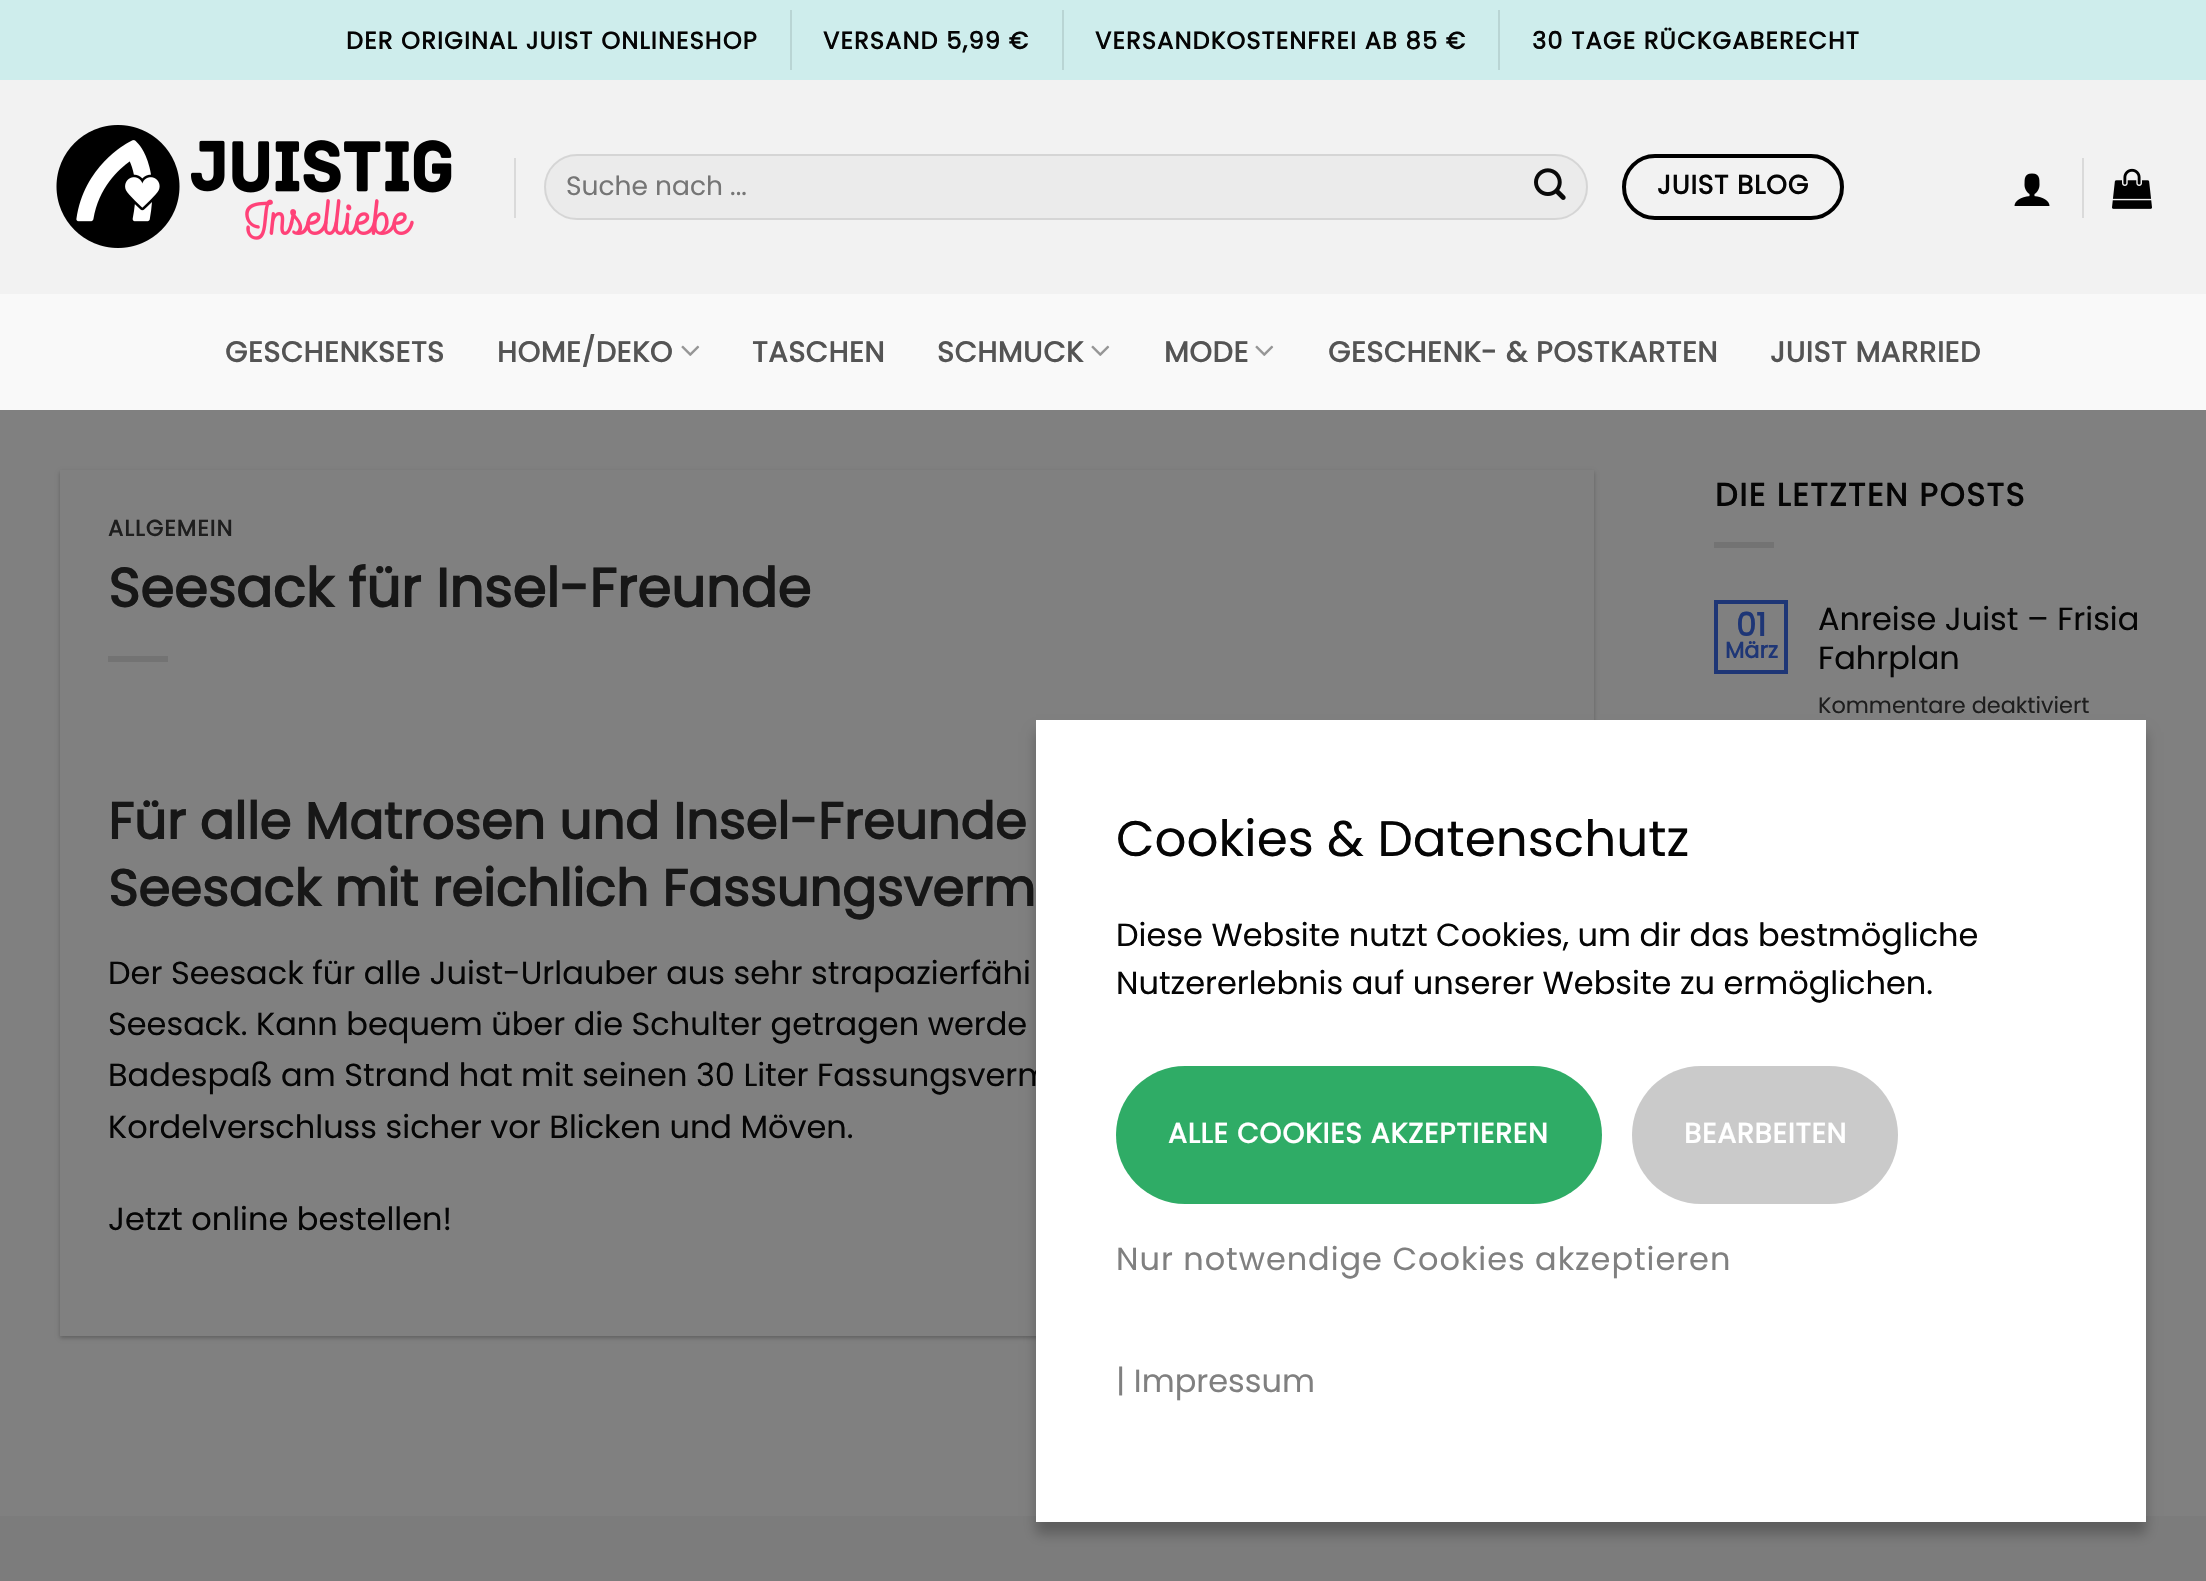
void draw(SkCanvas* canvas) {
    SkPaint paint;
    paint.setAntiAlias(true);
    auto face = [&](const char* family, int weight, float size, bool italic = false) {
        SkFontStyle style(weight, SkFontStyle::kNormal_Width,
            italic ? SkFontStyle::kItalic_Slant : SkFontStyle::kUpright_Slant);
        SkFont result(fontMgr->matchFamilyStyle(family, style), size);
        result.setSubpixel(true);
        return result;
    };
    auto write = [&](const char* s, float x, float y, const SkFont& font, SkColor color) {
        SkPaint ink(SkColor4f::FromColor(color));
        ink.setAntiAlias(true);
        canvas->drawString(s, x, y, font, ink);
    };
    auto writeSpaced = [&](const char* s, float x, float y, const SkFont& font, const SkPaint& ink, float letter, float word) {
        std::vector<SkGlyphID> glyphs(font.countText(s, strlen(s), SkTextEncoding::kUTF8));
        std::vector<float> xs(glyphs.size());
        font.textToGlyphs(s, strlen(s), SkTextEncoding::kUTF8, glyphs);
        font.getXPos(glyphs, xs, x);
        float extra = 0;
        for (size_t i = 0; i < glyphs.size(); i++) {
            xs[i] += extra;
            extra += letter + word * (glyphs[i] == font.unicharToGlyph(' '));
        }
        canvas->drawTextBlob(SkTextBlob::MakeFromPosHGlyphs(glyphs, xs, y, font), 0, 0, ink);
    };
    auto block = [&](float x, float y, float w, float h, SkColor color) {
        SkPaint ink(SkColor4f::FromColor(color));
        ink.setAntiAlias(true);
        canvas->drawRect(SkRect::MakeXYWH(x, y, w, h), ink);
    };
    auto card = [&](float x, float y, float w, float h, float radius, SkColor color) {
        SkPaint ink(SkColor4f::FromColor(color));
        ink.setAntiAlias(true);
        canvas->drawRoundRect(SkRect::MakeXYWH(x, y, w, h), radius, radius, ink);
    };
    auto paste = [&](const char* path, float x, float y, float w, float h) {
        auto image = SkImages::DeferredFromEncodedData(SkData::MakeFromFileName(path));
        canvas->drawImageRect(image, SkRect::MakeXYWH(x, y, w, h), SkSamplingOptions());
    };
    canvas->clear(SkColorSetRGB(128, 128, 128));
    block(0, 0, 2206, 80, SkColorSetRGB(206, 237, 236));
    auto kFont1 = face("Poppins", 700, 24);
    paint.setColor(SkColorSetRGB(5, 5, 5));
    writeSpaced("DER ORIGINAL JUIST ONLINESHOP", 346, 49, kFont1, paint, 1.2f, 0);
    block(790, 10, 2, 60, SkColorSetRGB(185, 213, 212));
    writeSpaced("VERSAND 5,99 €", 823, 49, kFont1, paint, 1.2f, 0);
    block(1062, 10, 2, 60, SkColorSetRGB(185, 213, 212));
    writeSpaced("VERSANDKOSTENFREI AB 85 €", 1095, 49, kFont1, paint, 1.2f, 0);
    block(1498, 10, 2, 60, SkColorSetRGB(185, 213, 212));
    writeSpaced("30 TAGE RÜCKGABERECHT", 1532, 49, kFont1, paint, 1.2f, 0);
    block(0, 80, 2206, 214, SkColorSetRGB(242, 242, 242));
    paste("pic1.png", 56, 125, 396, 123);
    block(514, 158, 2, 60, SkColorSetRGB(218, 218, 218));
    card(544, 154, 1044, 66, 33, SkColorSetRGB(235, 235, 235));
    paint.setStyle(SkPaint::kStroke_Style);
    paint.setStrokeWidth(2);
    paint.setColor(SkColorSetARGB(23, 0, 0, 0));
    canvas->drawRoundRect(SkRect::MakeXYWH(545, 155, 1042, 64), 32, 32, paint);
    auto kFont2 = face("Poppins", 400, 26.5f);
    write("Suche nach ...", 566, 195, kFont2, SkColorSetRGB(117, 117, 117));
    paste("pic2.png", 1534, 168, 32, 32);
    paint.setStrokeWidth(4);
    paint.setColor(SK_ColorBLACK);
    canvas->drawRoundRect(SkRect::MakeXYWH(1624, 156, 218, 62), 31, 31, paint);
    auto kFont3 = face("Poppins", 700, 26.5f);
    paint.setStyle(SkPaint::kFill_Style);
    paint.setColor(SkColorSetRGB(5, 5, 5));
    writeSpaced("JUIST BLOG", 1657, 194, kFont3, paint, 0.75f, 0);
    paste("pic3.png", 2014, 173, 36, 33);
    block(2082, 158, 2, 60, SkColorSetRGB(218, 218, 218));
    paste("pic4.png", 2112, 168, 40, 41);
    block(0, 294, 2206, 116, SkColorSetRGB(249, 249, 249));
    auto kFont4 = face("Poppins", 700, 28.75f);
    paint.setColor(SkColorSetRGB(84, 84, 84));
    writeSpaced("GESCHENKSETS", 225, 362, kFont4, paint, 0.6f, 0);
    writeSpaced("HOME/DEKO", 497, 362, kFont4, paint, 0.6f, 0);
    paste("pic5.png", 681, 345, 19, 11);
    writeSpaced("TASCHEN", 752, 362, kFont4, paint, 0.6f, 0);
    writeSpaced("SCHMUCK", 937, 362, kFont4, paint, 0.6f, 0);
    paste("pic5.png", 1091, 345, 19, 11);
    writeSpaced("MODE", 1164, 362, kFont4, paint, 0.6f, 0);
    paste("pic5.png", 1255, 345, 19, 11);
    writeSpaced("GESCHENK- & POSTKARTEN", 1328, 362, kFont4, paint, 0.6f, 0);
    writeSpaced("JUIST MARRIED", 1770, 362, kFont4, paint, 0.6f, 0);
    canvas->save();
    canvas->clipPath(SkPathBuilder(SkPathFillType::kEvenOdd).moveTo(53, 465).lineTo(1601, 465).lineTo(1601, 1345).lineTo(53, 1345).close().moveTo(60, 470).lineTo(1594, 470).lineTo(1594, 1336).lineTo(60, 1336).close().detach(), true);
    paint.setColor(SkColorSetARGB(61, 0, 0, 0));
    paint.setMaskFilter(SkMaskFilter::MakeBlur(kNormal_SkBlurStyle, 2));
    canvas->drawRect(SkRect::MakeXYWH(60, 472, 1534, 866), paint);
    paint.setMaskFilter(nullptr);
    canvas->restore();
    auto kFont5 = face("Poppins", 700, 22.4f);
    paint.setColor(SkColorSetRGB(30, 30, 30));
    writeSpaced("ALLGEMEIN", 108, 536, kFont5, paint, 1.1f, 0);
    auto kFont6 = face("Poppins", 700, 54.4f);
    write("Seesack für Insel-Freunde", 108, 607, kFont6, SkColorSetRGB(23, 23, 23));
    block(108, 656, 60, 6, SkColorSetRGB(115, 115, 115));
    auto kFont7 = face("Poppins", 700, 51.25f);
    write("Für alle Matrosen und Insel-Freunde", 108, 839, kFont7, SkColorSetRGB(23, 23, 23));
    write("Seesack mit reichlich Fassungsverm", 108, 906, kFont7, SkColorSetRGB(23, 23, 23));
    auto kFont8 = face("Poppins", 400, 32);
    write("Der Seesack für alle Juist-Urlauber aus sehr strapazierfähi", 108, 984, kFont8, SkColorSetRGB(5, 5, 5));
    write("Seesack. Kann bequem über die Schulter getragen werde", 108, 1035, kFont8, SkColorSetRGB(5, 5, 5));
    write("Badespaß am Strand hat mit seinen 30 Liter Fassungsverm", 108, 1086, kFont8, SkColorSetRGB(5, 5, 5));
    write("Kordelverschluss sicher vor Blicken und Möven.", 108, 1138, kFont8, SkColorSetRGB(5, 5, 5));
    write("Jetzt online bestellen!", 108, 1230, kFont8, SkColorSetRGB(5, 5, 5));
    auto kFont9 = face("Poppins", 700, 32);
    paint.setColor(SkColorSetRGB(5, 5, 5));
    writeSpaced("DIE LETZTEN POSTS", 1715, 506, kFont9, paint, 1.6f, 0);
    block(1714, 542, 60, 6, SkColorSetRGB(115, 115, 115));
    paint.setStyle(SkPaint::kStroke_Style);
    paint.setColor(SkColorSetRGB(30, 54, 118));
    canvas->drawRect(SkRect::MakeXYWH(1716, 602, 70, 70), paint);
    write("01", 1736, 636, kFont9, SkColorSetRGB(30, 54, 118));
    write("März", 1725, 658, kFont5, SkColorSetRGB(30, 54, 118));
    write("Anreise Juist – Frisia", 1818, 630, kFont8, SkColorSetRGB(5, 5, 5));
    write("Fahrplan", 1818, 669, kFont8, SkColorSetRGB(5, 5, 5));
    auto kFont10 = face("Poppins", 400, 22.4f);
    write("Kommentare deaktiviert", 1818, 713, kFont10, SkColorSetRGB(30, 30, 30));
    block(0, 1516, 2206, 65, SkColorSetRGB(124, 124, 124));
    paint.setStyle(SkPaint::kFill_Style);
    paint.setColor(SkColorSetARGB(64, 0, 0, 0));
    paint.setMaskFilter(SkMaskFilter::MakeBlur(kNormal_SkBlurStyle, 6));
    canvas->drawRect(SkRect::MakeXYWH(1036, 732, 1110, 802), paint);
    paint.setMaskFilter(nullptr);
    block(1036, 720, 1110, 802, SK_ColorWHITE);
    auto kFont11 = face("Poppins", 400, 50);
    write("Cookies & Datenschutz", 1116, 856, kFont11, SkColorSetRGB(5, 5, 5));
    write("Diese Website nutzt Cookies, um dir das bestmögliche", 1116, 946, kFont8, SkColorSetRGB(5, 5, 5));
    write("Nutzererlebnis auf unserer Website zu ermöglichen.", 1116, 994, kFont8, SkColorSetRGB(5, 5, 5));
    card(1116, 1066, 486, 138, 69, SkColorSetRGB(47, 172, 102));
    auto kFont12 = face("Poppins", 700, 28);
    paint.setColor(SK_ColorWHITE);
    writeSpaced("ALLE COOKIES AKZEPTIEREN", 1168, 1143, kFont12, paint, 0.8f, 0);
    card(1632, 1066, 266, 138, 69, SkColorSetRGB(202, 202, 202));
    writeSpaced("BEARBEITEN", 1684, 1143, kFont12, paint, 0.8f, 0);
    paint.setColor(SkColorSetRGB(128, 128, 128));
    writeSpaced("Nur notwendige Cookies akzeptieren", 1116, 1270, kFont8, paint, 0.95f, 0);
    write("| Impressum", 1116, 1392, kFont8, SkColorSetRGB(128, 128, 128));
}
